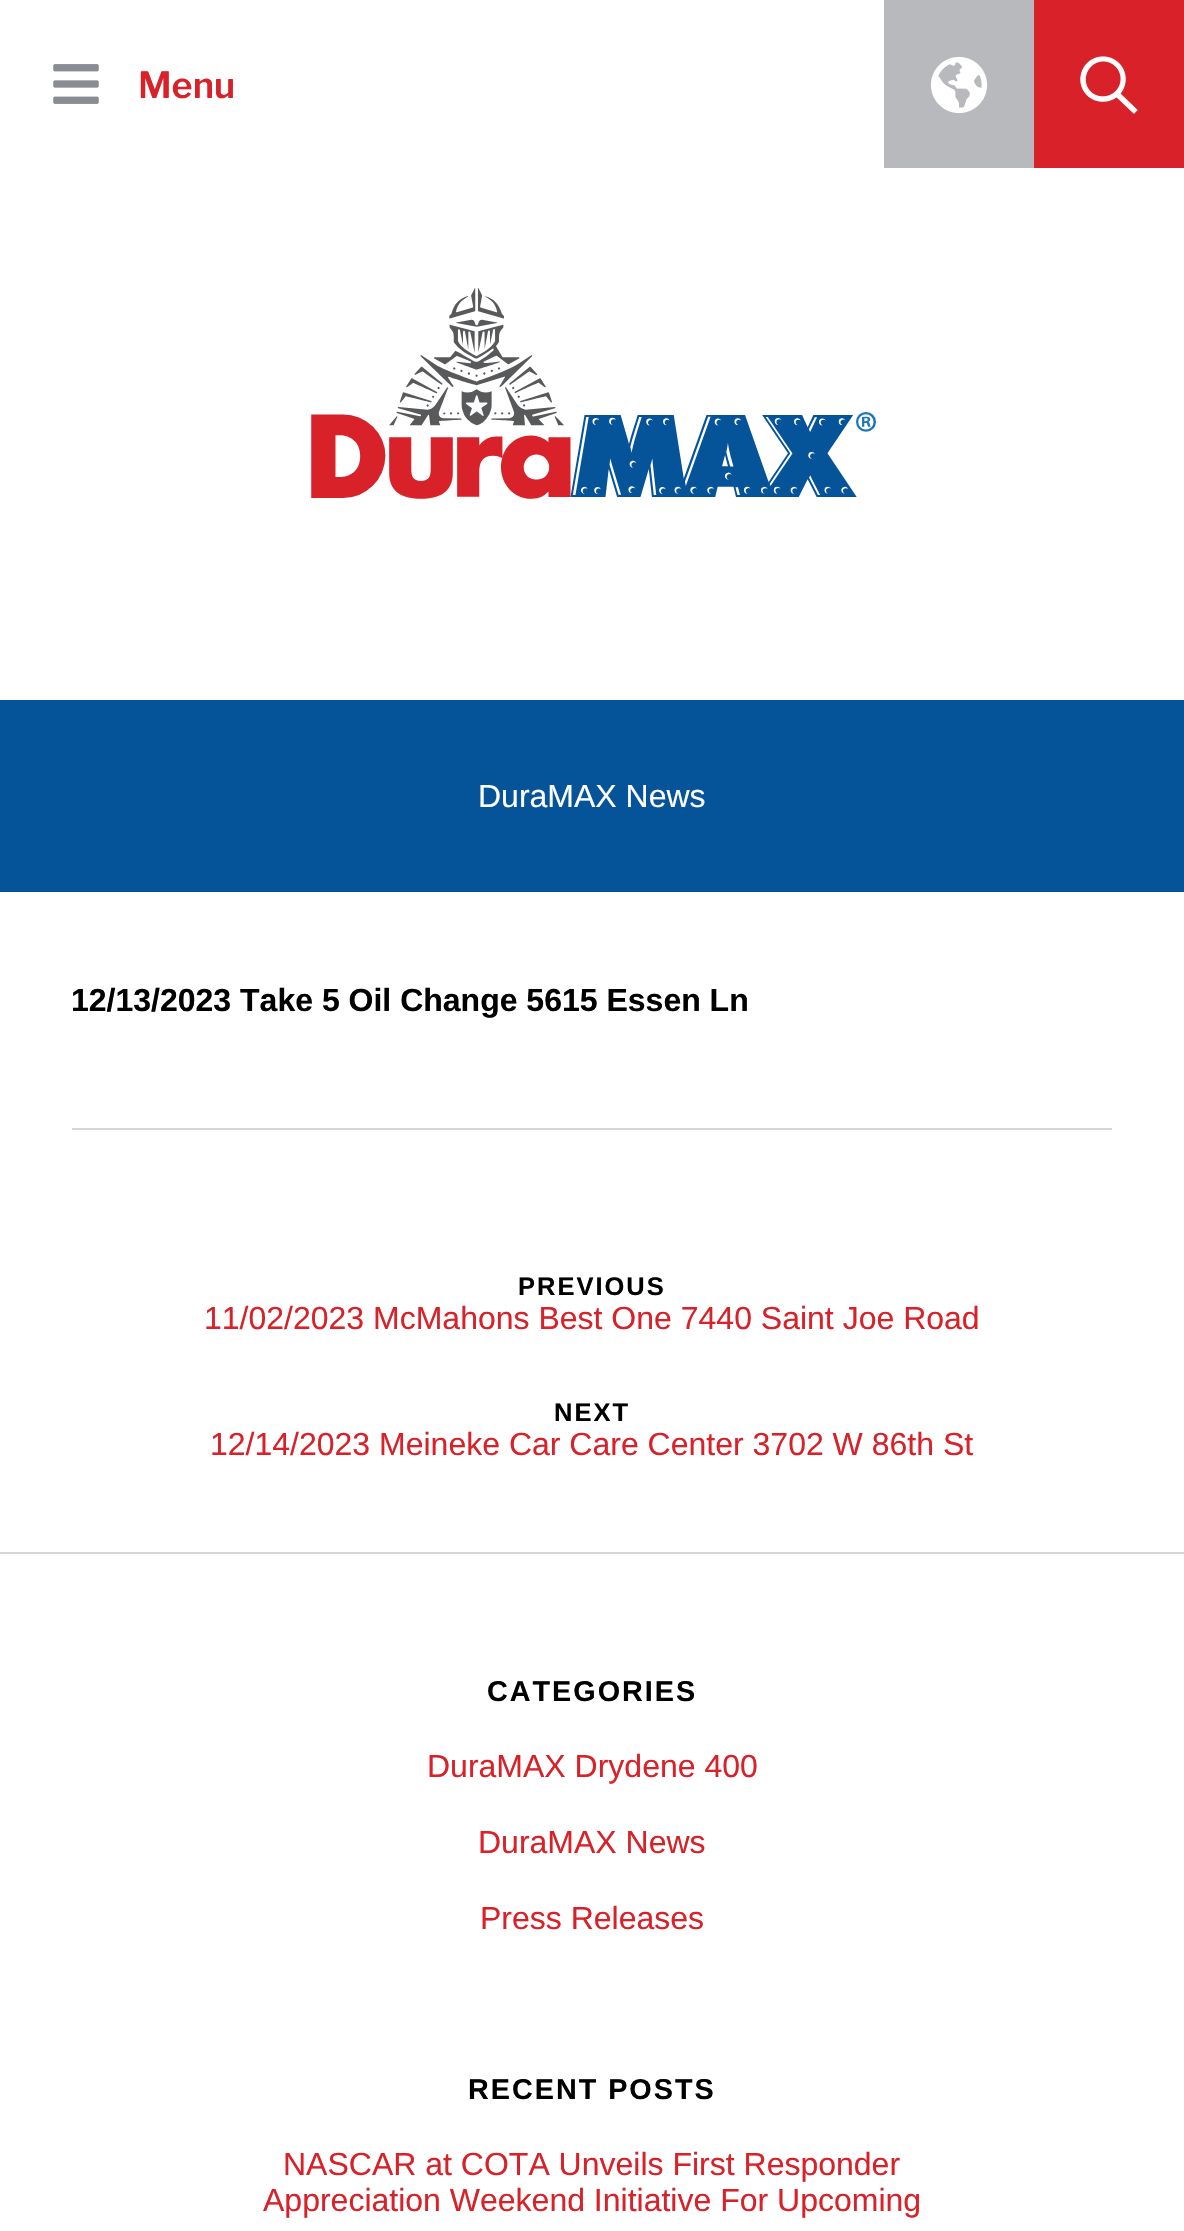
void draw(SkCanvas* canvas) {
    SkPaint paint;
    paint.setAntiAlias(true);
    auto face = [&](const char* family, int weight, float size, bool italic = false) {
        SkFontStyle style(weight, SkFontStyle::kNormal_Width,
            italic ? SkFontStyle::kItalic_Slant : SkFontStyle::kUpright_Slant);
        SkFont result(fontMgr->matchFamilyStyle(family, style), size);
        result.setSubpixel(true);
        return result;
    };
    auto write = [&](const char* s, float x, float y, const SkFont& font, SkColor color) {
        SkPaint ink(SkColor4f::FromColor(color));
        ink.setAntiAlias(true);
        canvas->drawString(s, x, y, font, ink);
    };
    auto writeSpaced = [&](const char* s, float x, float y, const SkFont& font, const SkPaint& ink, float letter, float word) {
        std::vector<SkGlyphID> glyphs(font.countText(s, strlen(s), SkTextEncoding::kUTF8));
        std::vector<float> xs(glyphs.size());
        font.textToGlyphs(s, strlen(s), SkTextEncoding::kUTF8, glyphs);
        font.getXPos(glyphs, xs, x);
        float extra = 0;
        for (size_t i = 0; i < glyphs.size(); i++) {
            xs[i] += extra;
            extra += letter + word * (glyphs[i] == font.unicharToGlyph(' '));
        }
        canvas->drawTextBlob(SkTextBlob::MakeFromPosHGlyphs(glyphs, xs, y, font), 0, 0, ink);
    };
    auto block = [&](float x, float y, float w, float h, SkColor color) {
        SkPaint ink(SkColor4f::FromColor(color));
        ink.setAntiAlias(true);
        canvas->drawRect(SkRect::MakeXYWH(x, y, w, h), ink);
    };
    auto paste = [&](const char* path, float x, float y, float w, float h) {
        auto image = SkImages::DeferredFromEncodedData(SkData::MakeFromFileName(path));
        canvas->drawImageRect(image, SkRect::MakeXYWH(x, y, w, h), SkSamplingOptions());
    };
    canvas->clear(SK_ColorWHITE);
    paste("pic1.png", 53, 64, 46, 40);
    auto kFont1 = face("Libre Franklin", 600, 36);
    write("Menu", 138, 98, kFont1, SkColorSetRGB(216, 33, 40));
    block(884, 0, 150, 168, SkColorSetRGB(183, 185, 188));
    paste("pic2.png", 930, 56, 58, 58);
    block(1034, 0, 150, 168, SkColorSetRGB(216, 33, 40));
    paste("pic3.png", 1080, 56, 58, 58);
    paste("pic4.png", 311, 288, 565, 211);
    block(0, 700, 1184, 192, SkColorSetRGB(5, 84, 154));
    auto kFont2 = face("Liberation Sans", 400, 32);
    write("DuraMAX News", 478, 807, kFont2, SK_ColorWHITE);
    block(72, 1128, 1040, 2, SkColorSetRGB(212, 215, 217));
    auto kFont3 = face("Liberation Sans", 700, 32);
    write("12/13/2023 Take 5 Oil Change 5615 Essen Ln", 71, 1011, kFont3, SK_ColorBLACK);
    block(0, 1552, 1184, 2, SkColorSetRGB(212, 215, 217));
    auto kFont4 = face("Liberation Sans", 700, 25.5f);
    paint.setColor(SK_ColorBLACK);
    writeSpaced("PREVIOUS", 518, 1295, kFont4, paint, 2, 0);
    write("11/02/2023 McMahons Best One 7440 Saint Joe Road", 204, 1329, kFont2, SkColorSetRGB(216, 33, 40));
    writeSpaced("NEXT", 554, 1421, kFont4, paint, 2, 0);
    write("12/14/2023 Meineke Car Care Center 3702 W 86th St", 210, 1455, kFont2, SkColorSetRGB(216, 33, 40));
    auto kFont5 = face("Liberation Sans", 700, 28.75f);
    writeSpaced("CATEGORIES", 487, 1701, kFont5, paint, 2, 0);
    write("DuraMAX Drydene 400", 427, 1777, kFont2, SkColorSetRGB(216, 33, 40));
    write("DuraMAX News", 478, 1853, kFont2, SkColorSetRGB(216, 33, 40));
    write("Press Releases", 480, 1929, kFont2, SkColorSetRGB(216, 33, 40));
    writeSpaced("RECENT POSTS", 468, 2099, kFont5, paint, 2, 0);
    write("NASCAR at COTA Unveils First Responder", 283, 2175, kFont2, SkColorSetRGB(216, 33, 40));
    write("Appreciation Weekend Initiative For Upcoming", 263, 2211, kFont2, SkColorSetRGB(216, 33, 40));
}
